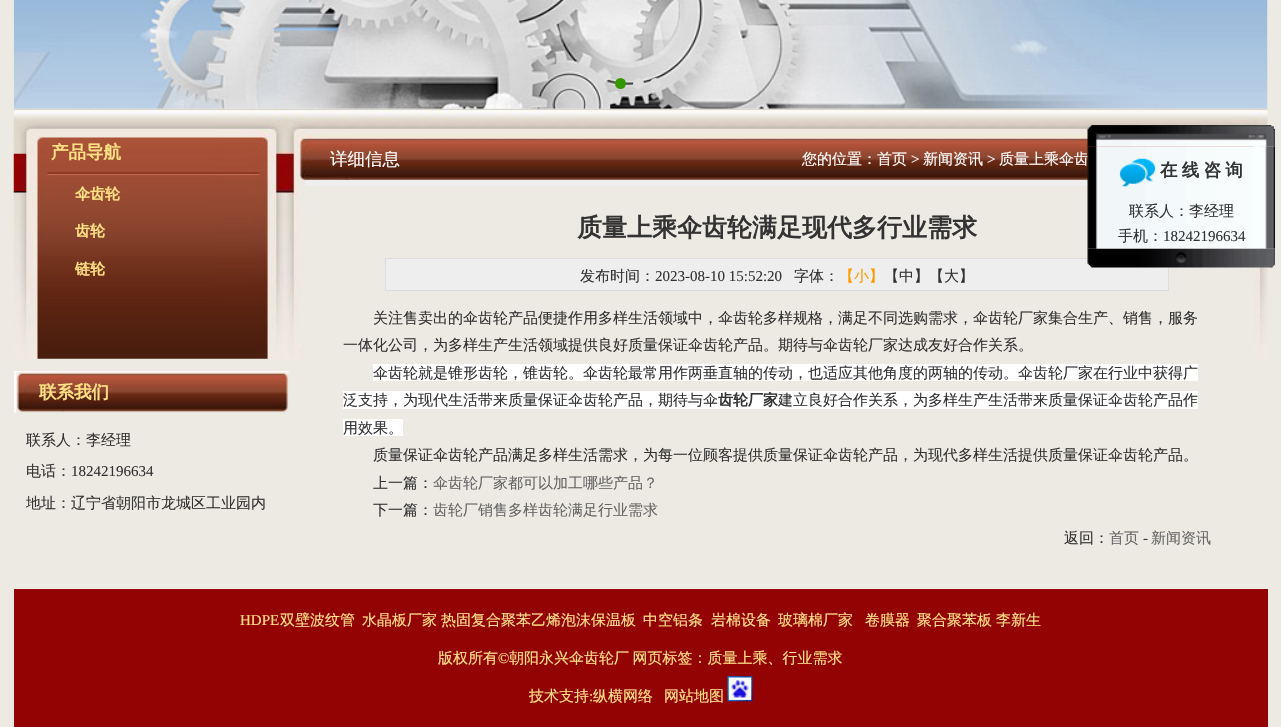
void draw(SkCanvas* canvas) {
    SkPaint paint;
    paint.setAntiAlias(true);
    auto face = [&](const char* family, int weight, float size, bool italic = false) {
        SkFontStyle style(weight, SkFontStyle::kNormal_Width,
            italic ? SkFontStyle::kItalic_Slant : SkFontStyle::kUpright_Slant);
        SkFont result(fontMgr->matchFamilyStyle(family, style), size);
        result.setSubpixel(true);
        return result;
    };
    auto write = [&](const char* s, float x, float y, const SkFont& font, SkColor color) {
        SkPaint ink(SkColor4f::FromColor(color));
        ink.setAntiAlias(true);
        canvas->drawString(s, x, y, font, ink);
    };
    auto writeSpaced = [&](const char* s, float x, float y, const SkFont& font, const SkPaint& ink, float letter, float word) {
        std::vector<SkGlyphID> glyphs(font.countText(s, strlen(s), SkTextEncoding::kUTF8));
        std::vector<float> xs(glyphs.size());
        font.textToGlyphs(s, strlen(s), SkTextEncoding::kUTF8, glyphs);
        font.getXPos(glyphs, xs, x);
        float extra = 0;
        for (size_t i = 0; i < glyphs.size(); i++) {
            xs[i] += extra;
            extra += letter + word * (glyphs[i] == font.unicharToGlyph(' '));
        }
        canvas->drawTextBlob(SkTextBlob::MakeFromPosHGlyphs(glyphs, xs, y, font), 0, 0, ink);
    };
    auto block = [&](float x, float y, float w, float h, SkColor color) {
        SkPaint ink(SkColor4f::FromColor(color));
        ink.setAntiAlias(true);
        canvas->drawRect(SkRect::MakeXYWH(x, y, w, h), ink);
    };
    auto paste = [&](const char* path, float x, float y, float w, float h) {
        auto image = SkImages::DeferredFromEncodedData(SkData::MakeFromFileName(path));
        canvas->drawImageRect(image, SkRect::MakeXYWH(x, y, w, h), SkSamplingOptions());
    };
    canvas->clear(SkColorSetRGB(237, 234, 227));
    paste("pic2.png", 13, 108, 1255, 251);
    paste("pic1.png", 13, 0, 1255, 109);
    paint.setColor(SkColorSetRGB(51, 153, 0));
    canvas->drawCircle(620.5f, 83.5f, 5.5f, paint);
    paint.setColor(SkColorSetRGB(221, 221, 221));
    canvas->drawCircle(638.5f, 83.5f, 5.5f, paint);
    canvas->drawCircle(655.5f, 83.5f, 5.5f, paint);
    auto kFont1 = face("WenQuanYi Zen Hei", 700, 17.5f);
    write("产品导航", 51, 158, kFont1, SkColorSetRGB(255, 226, 134));
    auto kFont2 = face("WenQuanYi Zen Hei", 700, 15);
    write("伞齿轮", 75, 199, kFont2, SkColorSetRGB(255, 226, 134));
    write("齿轮", 75, 236, kFont2, SkColorSetRGB(255, 226, 134));
    write("链轮", 75, 274, kFont2, SkColorSetRGB(255, 226, 134));
    auto kFont3 = face("WenQuanYi Zen Hei", 500, 17.5f);
    write("详细信息", 330, 165, kFont3, SK_ColorWHITE);
    auto kFont4 = face("WenQuanYi Zen Hei", 500, 15);
    write("您的位置：首页", 802, 164, kFont4, SK_ColorWHITE);
    auto kFont5 = face("Liberation Serif", 400, 15);
    write(">", 911, 164, kFont5, SK_ColorWHITE);
    write("新闻资讯", 923, 164, kFont4, SK_ColorWHITE);
    write(">", 987, 164, kFont5, SK_ColorWHITE);
    write("质量上乘伞齿", 999, 164, kFont4, SK_ColorWHITE);
    block(305, 180, 783, 6, SkColorSetRGB(238, 238, 238));
    auto kFont6 = face("WenQuanYi Zen Hei", 700, 25);
    write("质量上乘伞齿轮满足现代多行业需求", 577, 236, kFont6, SkColorSetRGB(51, 51, 51));
    paint.setColor(SkColorSetRGB(238, 238, 238));
    canvas->drawRect(SkRect::MakeXYWH(385.5f, 258.5f, 783, 32), paint);
    paint.setStyle(SkPaint::kStroke_Style);
    paint.setStrokeWidth(1);
    paint.setColor(SkColorSetRGB(221, 221, 221));
    canvas->drawRect(SkRect::MakeXYWH(385.5f, 258.5f, 783, 32), paint);
    write("发布时间：", 580, 281, kFont4, SkColorSetRGB(51, 51, 51));
    write("2023-08-10 15:52:20", 655, 281, kFont5, SkColorSetRGB(51, 51, 51));
    write("字体：", 794, 281, kFont4, SkColorSetRGB(51, 51, 51));
    write("【小】", 839, 281, kFont4, SkColorSetRGB(255, 153, 0));
    write("【中】【大】", 884, 281, kFont4, SkColorSetRGB(51, 51, 51));
    write("关注售卖出的伞齿轮产品便捷作用多样生活领域中，伞齿轮多样规格，满足不同选购需求，伞齿轮厂家集合生产、销售，服务", 373, 323, kFont4, SkColorSetRGB(51, 51, 51));
    write("一体化公司，为多样生产生活领域提供良好质量保证伞齿轮产品。期待与伞齿轮厂家达成友好合作关系。", 343, 350, kFont4, SkColorSetRGB(51, 51, 51));
    block(373, 364, 825, 17, SK_ColorWHITE);
    write("伞齿轮就是锥形齿轮，锥齿轮。伞齿轮最常用作两垂直轴的传动，也适应其他角度的两轴的传动。伞齿轮厂家在行业中获得广", 373, 378, kFont4, SkColorSetRGB(51, 51, 51));
    block(343, 391, 855, 18, SK_ColorWHITE);
    write("泛支持，为现代生活带来质量保证伞齿轮产品，期待与伞", 343, 405, kFont4, SkColorSetRGB(51, 51, 51));
    write("齿轮厂家", 718, 405, kFont2, SkColorSetRGB(51, 51, 51));
    write("建立良好合作关系，为多样生产生活带来质量保证伞齿轮产品作", 778, 405, kFont4, SkColorSetRGB(51, 51, 51));
    block(343, 419, 60, 17, SK_ColorWHITE);
    write("用效果。", 343, 433, kFont4, SkColorSetRGB(51, 51, 51));
    write("质量保证伞齿轮产品满足多样生活需求，为每一位顾客提供质量保证伞齿轮产品，为现代多样生活提供质量保证伞齿轮产品。", 373, 460, kFont4, SkColorSetRGB(51, 51, 51));
    write("上一篇：", 373, 488, kFont4, SkColorSetRGB(51, 51, 51));
    write("伞齿轮厂家都可以加工哪些产品？", 433, 488, kFont4, SkColorSetRGB(102, 102, 102));
    write("下一篇：", 373, 515, kFont4, SkColorSetRGB(51, 51, 51));
    write("齿轮厂销售多样齿轮满足行业需求", 433, 515, kFont4, SkColorSetRGB(102, 102, 102));
    write("返回：", 1064, 543, kFont4, SkColorSetRGB(51, 51, 51));
    write("首页", 1109, 543, kFont4, SkColorSetRGB(102, 102, 102));
    write("-", 1143, 543, kFont5, SkColorSetRGB(51, 51, 51));
    write("新闻资讯", 1151, 543, kFont4, SkColorSetRGB(102, 102, 102));
    paste("pic3.png", 14, 371, 275, 42);
    write("联系我们", 39, 398, kFont1, SkColorSetRGB(255, 226, 134));
    write("联系人：李经理", 26, 445, kFont4, SkColorSetRGB(51, 51, 51));
    write("电话：", 26, 476, kFont4, SkColorSetRGB(51, 51, 51));
    write("18242196634", 71, 476, kFont5, SkColorSetRGB(51, 51, 51));
    write("地址：辽宁省朝阳市龙城区工业园内", 26, 508, kFont4, SkColorSetRGB(51, 51, 51));
    paste("pic5.png", 1087, 146, 188, 103);
    paste("pic4.png", 1087, 125, 188, 22);
    paste("pic6.png", 1119, 158, 37, 29);
    paint.setStyle(SkPaint::kFill_Style);
    paint.setColor(SkColorSetRGB(51, 51, 51));
    writeSpaced("在 线 咨 询", 1160, 176, kFont1, paint, 0, -1);
    write("联系人：李经理", 1129, 216, kFont4, SkColorSetRGB(51, 51, 51));
    write("手机：", 1118, 241, kFont4, SkColorSetRGB(51, 51, 51));
    write("18242196634", 1163, 241, kFont5, SkColorSetRGB(51, 51, 51));
    paste("pic7.png", 1087, 248, 188, 20);
    block(14, 589, 1254, 138, SkColorSetRGB(147, 3, 3));
    write("HDPE", 240, 625, kFont5, SkColorSetRGB(255, 226, 134));
    write("双壁波纹管", 280, 625, kFont4, SkColorSetRGB(255, 226, 134));
    write("水晶板厂家", 362, 625, kFont4, SkColorSetRGB(255, 226, 134));
    write("热固复合聚苯乙烯泡沫保温板", 441, 625, kFont4, SkColorSetRGB(255, 226, 134));
    write("中空铝条", 643, 625, kFont4, SkColorSetRGB(255, 226, 134));
    write("岩棉设备", 711, 625, kFont4, SkColorSetRGB(255, 226, 134));
    write("玻璃棉厂家", 778, 625, kFont4, SkColorSetRGB(255, 226, 134));
    write("卷膜器", 865, 625, kFont4, SkColorSetRGB(255, 226, 134));
    write("聚合聚苯板", 917, 625, kFont4, SkColorSetRGB(255, 226, 134));
    write("李新生", 996, 625, kFont4, SkColorSetRGB(255, 226, 134));
    write("版权所有", 438, 663, kFont4, SkColorSetRGB(255, 226, 134));
    write("©", 498, 663, kFont5, SkColorSetRGB(255, 226, 134));
    paint.setColor(SkColorSetRGB(255, 226, 134));
    writeSpaced("朝阳永兴伞齿轮厂 网页标签：质量上乘、行业需求", 509, 663, kFont4, paint, 0, -1);
    write("技术支持", 529, 701, kFont4, SkColorSetRGB(255, 226, 134));
    write(":", 589, 701, kFont5, SkColorSetRGB(255, 226, 134));
    write("纵横网络", 593, 701, kFont4, SkColorSetRGB(255, 226, 134));
    write("网站地图", 664, 701, kFont4, SkColorSetRGB(255, 226, 134));
    paste("pic8.png", 727, 676, 26, 26);
}
